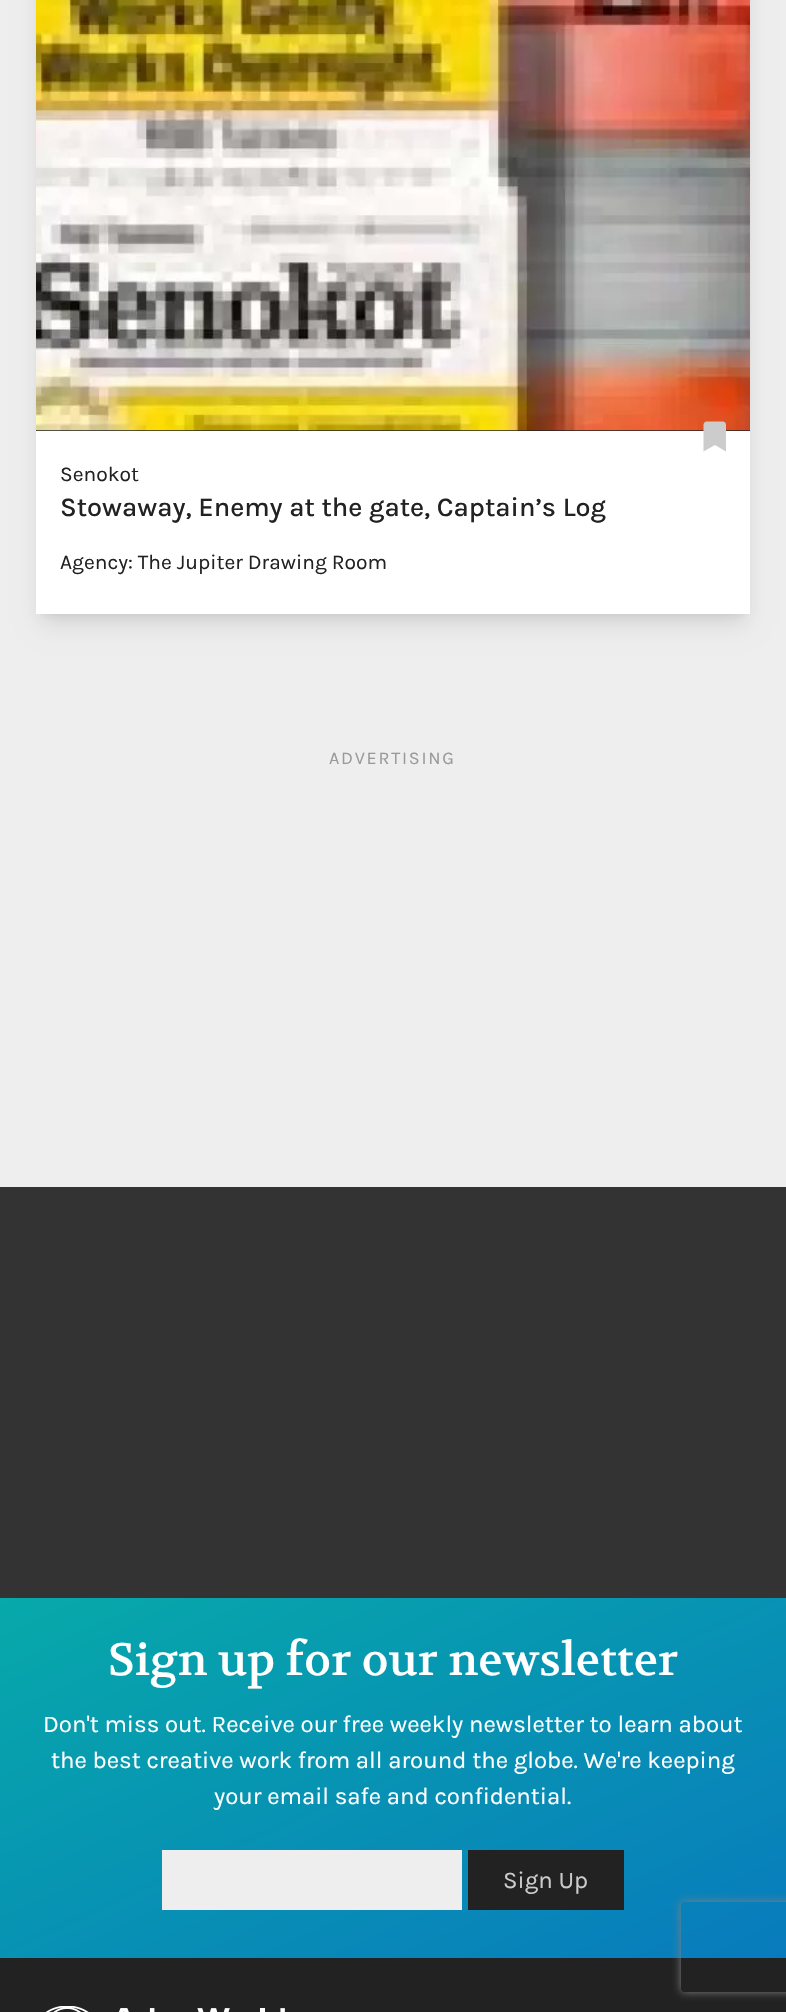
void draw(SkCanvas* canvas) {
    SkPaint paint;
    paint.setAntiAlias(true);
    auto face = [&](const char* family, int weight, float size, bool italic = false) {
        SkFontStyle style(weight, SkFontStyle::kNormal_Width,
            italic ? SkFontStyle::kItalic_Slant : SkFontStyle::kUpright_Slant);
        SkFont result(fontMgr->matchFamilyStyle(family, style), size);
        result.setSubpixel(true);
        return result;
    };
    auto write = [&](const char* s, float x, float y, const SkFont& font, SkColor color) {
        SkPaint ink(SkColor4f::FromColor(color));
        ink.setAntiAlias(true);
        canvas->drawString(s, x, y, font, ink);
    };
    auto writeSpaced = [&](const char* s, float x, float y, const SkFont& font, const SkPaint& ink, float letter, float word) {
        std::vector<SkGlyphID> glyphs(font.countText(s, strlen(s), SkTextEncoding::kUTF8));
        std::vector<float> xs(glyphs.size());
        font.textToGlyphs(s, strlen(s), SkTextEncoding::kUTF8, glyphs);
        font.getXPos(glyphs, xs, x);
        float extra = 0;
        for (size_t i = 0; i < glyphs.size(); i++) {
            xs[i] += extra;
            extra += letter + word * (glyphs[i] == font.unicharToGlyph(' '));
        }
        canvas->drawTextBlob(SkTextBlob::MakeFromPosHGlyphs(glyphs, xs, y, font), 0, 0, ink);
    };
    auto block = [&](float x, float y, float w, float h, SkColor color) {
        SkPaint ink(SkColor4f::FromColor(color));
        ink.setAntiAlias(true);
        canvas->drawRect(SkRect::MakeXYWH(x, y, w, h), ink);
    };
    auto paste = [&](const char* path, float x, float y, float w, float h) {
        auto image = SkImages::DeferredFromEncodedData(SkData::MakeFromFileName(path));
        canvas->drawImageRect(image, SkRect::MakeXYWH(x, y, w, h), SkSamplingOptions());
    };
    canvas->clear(SkColorSetRGB(238, 238, 238));
    paint.setColor(SkColorSetARGB(26, 0, 0, 0));
    paint.setMaskFilter(SkMaskFilter::MakeBlur(kNormal_SkBlurStyle, 4.5f));
    canvas->drawRect(SkRect::MakeXYWH(42, -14, 702, 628), paint);
    paint.setMaskFilter(nullptr);
    paint.setMaskFilter(SkMaskFilter::MakeBlur(kNormal_SkBlurStyle, 11));
    canvas->drawRect(SkRect::MakeXYWH(41, -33, 705, 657), paint);
    paint.setMaskFilter(nullptr);
    block(36, 431, 714, 183, SK_ColorWHITE);
    block(36, 430, 714, 1, SkColorSetRGB(34, 34, 34));
    paste("pic1.png", 36, 0, 714, 431);
    paint.setColor(SkColorSetRGB(204, 204, 204));
    canvas->drawPath(SkPathBuilder().moveTo(703.5f, 451.5f).lineTo(703.5f, 424.5f).cubicTo(703.5f, 423, 705, 421.5f, 706.5f, 421.5f).lineTo(723, 421.5f).cubicTo(724.5f, 421.5f, 726, 423, 726, 424.5f).lineTo(726, 451.5f).lineTo(715, 445).close().detach(), paint);
    auto kFont1 = face("Karla", 400, 21);
    write("Senokot", 60, 481, kFont1, SkColorSetRGB(34, 34, 34));
    auto kFont2 = face("Karla", 500, 27);
    write("Stowaway, Enemy at the gate, Captain’s Log", 60, 516, kFont2, SkColorSetRGB(34, 34, 34));
    write("Agency: The Jupiter Drawing Room", 60, 569, kFont1, SkColorSetRGB(34, 34, 34));
    auto kFont3 = face("Karla", 400, 18);
    paint.setColor(SkColorSetRGB(153, 153, 153));
    writeSpaced("ADVERTISING", 329, 764, kFont3, paint, 1.75f, 0);
    block(0, 1187, 786, 411, SkColorSetRGB(51, 51, 51));
    {
        const SkColor colors[] = {SkColorSetRGB(7, 169, 170), SkColorSetRGB(8, 123, 189)};
        const float stops[] = {0, 1};
        const SkPoint ends[] = {{257, 1480}, {529, 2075}};
        paint.setShader(SkGradientShader::MakeLinear(ends, colors, stops, 2, SkTileMode::kClamp));
        paint.setAlpha(255);
    }
    canvas->drawRect(SkRect::MakeXYWH(0, 1598, 786, 360), paint);
    auto kFont4 = face("Volkhov", 400, 45);
    write("Sign up for our newsletter", 108, 1675, kFont4, SK_ColorWHITE);
    auto kFont5 = face("Karla", 400, 24);
    write("Don't miss out. Receive our free weekly newsletter to learn about", 43, 1732, kFont5, SK_ColorWHITE);
    write("the best creative work from all around the globe. We're keeping", 51, 1768, kFont5, SK_ColorWHITE);
    write("your email safe and confidential.", 214, 1804, kFont5, SK_ColorWHITE);
    block(162, 1850, 300, 60, SkColorSetRGB(238, 238, 238));
    block(468, 1850, 156, 60, SkColorSetRGB(34, 34, 34));
    write("Sign Up", 503, 1888, kFont5, SkColorSetRGB(204, 204, 204));
    block(0, 1958, 786, 54, SkColorSetRGB(34, 34, 34));
    canvas->save();
    canvas->clipPath(SkPathBuilder(SkPathFillType::kEvenOdd).moveTo(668, 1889).lineTo(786, 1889).lineTo(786, 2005).lineTo(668, 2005).close().moveTo(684, 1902).lineTo(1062, 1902).cubicTo(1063.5f, 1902, 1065, 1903.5f, 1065, 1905).lineTo(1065, 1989).cubicTo(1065, 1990.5f, 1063.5f, 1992, 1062, 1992).lineTo(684, 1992).cubicTo(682.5f, 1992, 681, 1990.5f, 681, 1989).lineTo(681, 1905).cubicTo(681, 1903.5f, 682.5f, 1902, 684, 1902).close().detach(), true);
    paint.setShader(nullptr);
    paint.setColor(SkColorSetRGB(128, 128, 128));
    paint.setMaskFilter(SkMaskFilter::MakeBlur(kNormal_SkBlurStyle, 4));
    canvas->drawRoundRect(SkRect::MakeXYWH(681, 1902, 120, 90), 3, 3, paint);
    paint.setMaskFilter(nullptr);
    canvas->restore();
    paste("pic2.png", 46, 2006, 239, 6);
}
